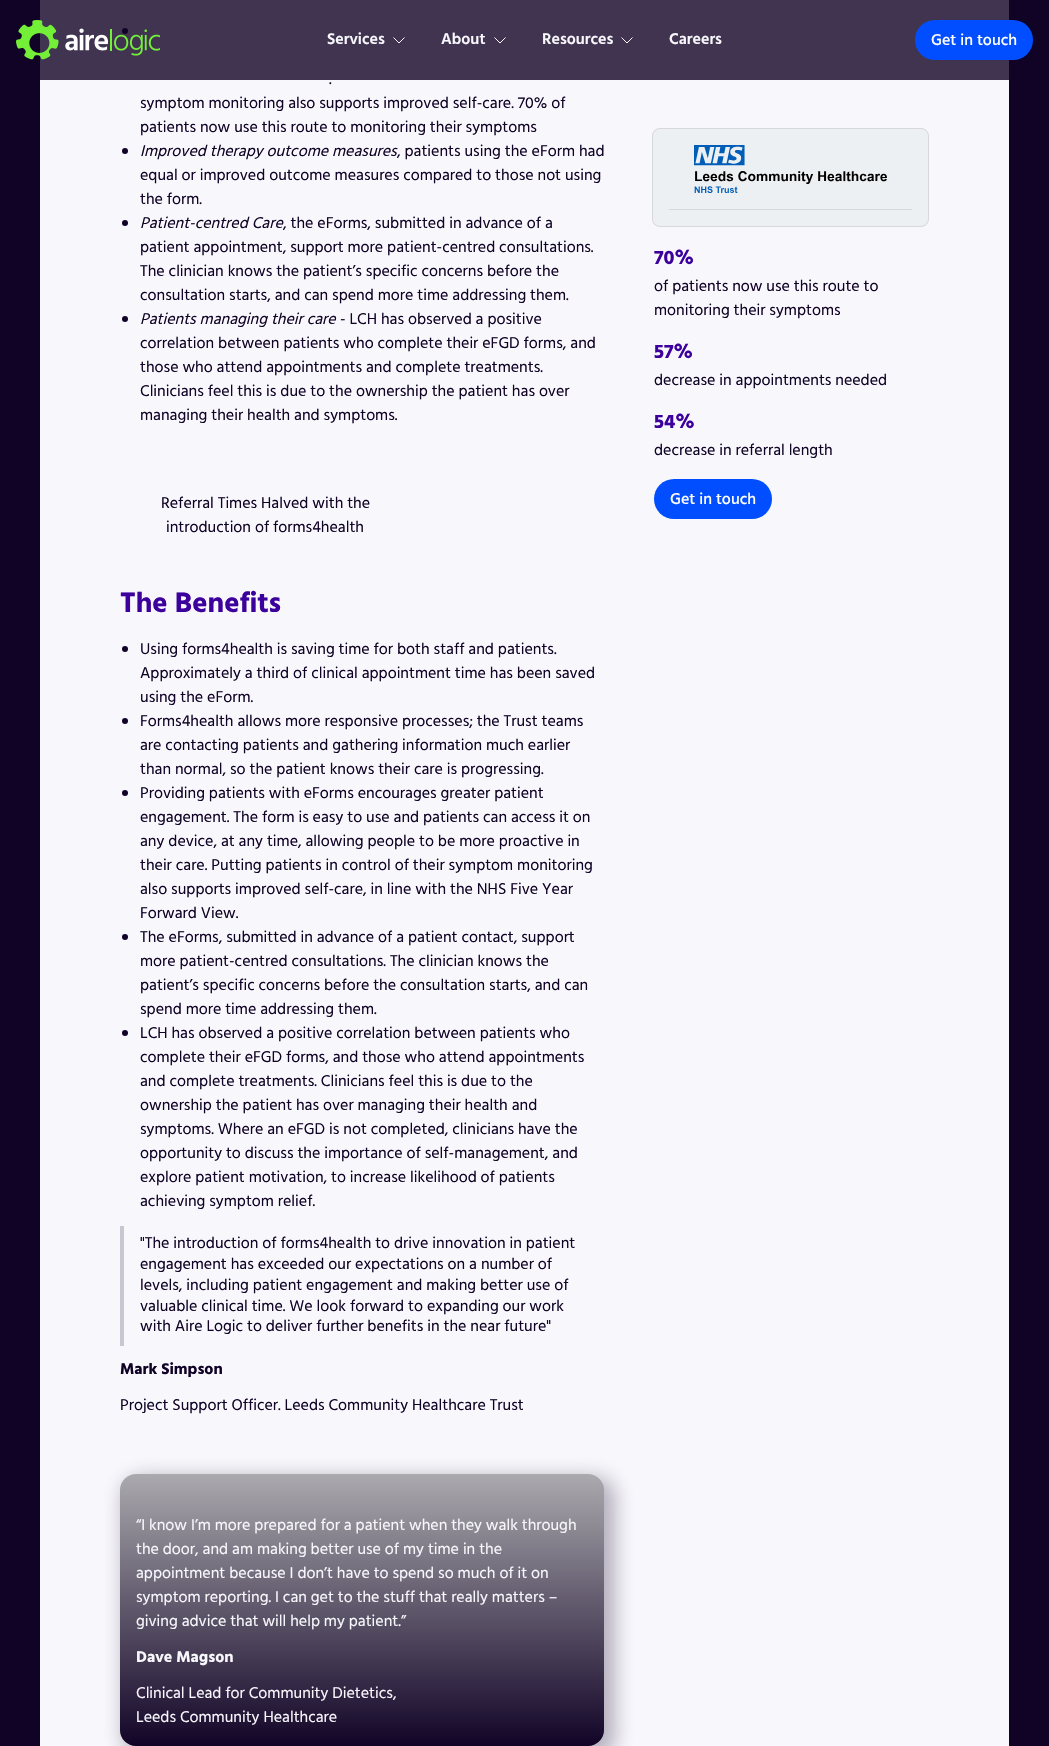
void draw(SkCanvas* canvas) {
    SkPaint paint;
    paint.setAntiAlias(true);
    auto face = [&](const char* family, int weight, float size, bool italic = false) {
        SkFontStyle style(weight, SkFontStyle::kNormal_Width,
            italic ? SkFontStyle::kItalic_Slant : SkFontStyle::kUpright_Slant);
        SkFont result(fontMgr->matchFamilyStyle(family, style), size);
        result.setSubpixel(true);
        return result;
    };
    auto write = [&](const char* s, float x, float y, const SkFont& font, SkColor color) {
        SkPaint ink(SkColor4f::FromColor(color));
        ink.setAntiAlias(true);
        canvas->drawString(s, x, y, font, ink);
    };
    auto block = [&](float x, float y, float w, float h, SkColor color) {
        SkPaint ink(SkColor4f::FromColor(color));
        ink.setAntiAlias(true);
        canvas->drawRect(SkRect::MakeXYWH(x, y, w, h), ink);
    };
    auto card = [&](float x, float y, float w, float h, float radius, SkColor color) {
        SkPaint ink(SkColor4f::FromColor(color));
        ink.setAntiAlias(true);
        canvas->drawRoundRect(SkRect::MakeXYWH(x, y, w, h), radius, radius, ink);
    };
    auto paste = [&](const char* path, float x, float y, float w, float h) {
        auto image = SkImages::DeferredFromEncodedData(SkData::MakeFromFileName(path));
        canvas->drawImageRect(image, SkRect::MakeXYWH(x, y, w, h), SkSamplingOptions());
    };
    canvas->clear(SkColorSetRGB(17, 3, 38));
    block(40, 0, 969, 1746, SkColorSetRGB(248, 247, 252));
    paint.setColor(SkColorSetRGB(17, 3, 38));
    canvas->drawCircle(125, 31, 3, paint);
    block(40, 0, 969, 80, SkColorSetARGB(204, 17, 3, 38));
    paste("pic1.png", 16, 20, 144, 40);
    auto kFont1 = face("Hind", 600, 16);
    write("Services", 327, 44, kFont1, SkColorSetRGB(248, 247, 252));
    paint.setStyle(SkPaint::kStroke_Style);
    paint.setStrokeWidth(1);
    paint.setColor(SkColorSetRGB(248, 247, 252));
    canvas->drawPath(SkPathBuilder().moveTo(393.5f, 37.5f).lineTo(399, 43).lineTo(404.5f, 37.5f).detach(), paint);
    write("About", 441, 44, kFont1, SkColorSetRGB(248, 247, 252));
    canvas->drawPath(SkPathBuilder().moveTo(494.5f, 37.5f).lineTo(500, 43).lineTo(505.5f, 37.5f).detach(), paint);
    write("Resources", 542, 44, kFont1, SkColorSetRGB(248, 247, 252));
    canvas->drawPath(SkPathBuilder().moveTo(621.5f, 37.5f).lineTo(627, 43).lineTo(632.5f, 37.5f).detach(), paint);
    write("Careers", 669, 44, kFont1, SkColorSetRGB(248, 247, 252));
    card(915, 20, 118, 40, 20, SkColorSetRGB(0, 78, 255));
    auto kFont2 = face("Hind", 500, 16);
    write("Get in touch", 931, 45, kFont2, SK_ColorWHITE);
    auto kFont3 = face("Hind", 400, 16);
    write(".", 329, 84, kFont3, SkColorSetRGB(17, 3, 38));
    write("symptom monitoring also supports improved self-care. 70% of", 140, 108, kFont3, SkColorSetRGB(17, 3, 38));
    write("patients now use this route to monitoring their symptoms", 140, 132, kFont3, SkColorSetRGB(17, 3, 38));
    paint.setStyle(SkPaint::kFill_Style);
    paint.setColor(SkColorSetRGB(17, 3, 38));
    canvas->drawCircle(125, 151, 3, paint);
    auto kFont4 = face("Hind", 400, 16, true);
    write("Improved therapy outcome measures", 140, 156, kFont4, SkColorSetRGB(17, 3, 38));
    write(", patients using the eForm had", 397, 156, kFont3, SkColorSetRGB(17, 3, 38));
    write("equal or improved outcome measures compared to those not using", 140, 180, kFont3, SkColorSetRGB(17, 3, 38));
    write("the form.", 140, 204, kFont3, SkColorSetRGB(17, 3, 38));
    canvas->drawCircle(125, 223, 3, paint);
    write("Patient-centred Care", 140, 228, kFont4, SkColorSetRGB(17, 3, 38));
    write(", the eForms, submitted in advance of a", 283, 228, kFont3, SkColorSetRGB(17, 3, 38));
    write("patient appointment, support more patient-centred consultations.", 140, 252, kFont3, SkColorSetRGB(17, 3, 38));
    write("The clinician knows the patient’s specific concerns before the", 140, 276, kFont3, SkColorSetRGB(17, 3, 38));
    write("consultation starts, and can spend more time addressing them.", 140, 300, kFont3, SkColorSetRGB(17, 3, 38));
    canvas->drawCircle(125, 319, 3, paint);
    write("Patients managing their care", 140, 324, kFont4, SkColorSetRGB(17, 3, 38));
    write("- LCH has observed a positive", 340, 324, kFont3, SkColorSetRGB(17, 3, 38));
    write("correlation between patients who complete their eFGD forms, and", 140, 348, kFont3, SkColorSetRGB(17, 3, 38));
    write("those who attend appointments and complete treatments.", 140, 372, kFont3, SkColorSetRGB(17, 3, 38));
    write("Clinicians feel this is due to the ownership the patient has over", 140, 396, kFont3, SkColorSetRGB(17, 3, 38));
    write("managing their health and symptoms.", 140, 420, kFont3, SkColorSetRGB(17, 3, 38));
    write("Referral Times Halved with the", 161, 508, kFont3, SkColorSetRGB(17, 3, 38));
    write("introduction of forms4health", 166, 532, kFont3, SkColorSetRGB(17, 3, 38));
    auto kFont5 = face("Hind", 700, 28.75f);
    write("The Benefits", 120, 612, kFont5, SkColorSetRGB(60, 0, 156));
    canvas->drawCircle(125, 649, 3, paint);
    write("Using forms4health is saving time for both staff and patients.", 140, 654, kFont3, SkColorSetRGB(17, 3, 38));
    write("Approximately a third of clinical appointment time has been saved", 140, 678, kFont3, SkColorSetRGB(17, 3, 38));
    write("using the eForm.", 140, 702, kFont3, SkColorSetRGB(17, 3, 38));
    canvas->drawCircle(125, 721, 3, paint);
    write("Forms4health allows more responsive processes; the Trust teams", 140, 726, kFont3, SkColorSetRGB(17, 3, 38));
    write("are contacting patients and gathering information much earlier", 140, 750, kFont3, SkColorSetRGB(17, 3, 38));
    write("than normal, so the patient knows their care is progressing.", 140, 774, kFont3, SkColorSetRGB(17, 3, 38));
    canvas->drawCircle(125, 793, 3, paint);
    write("Providing patients with eForms encourages greater patient", 140, 798, kFont3, SkColorSetRGB(17, 3, 38));
    write("engagement. The form is easy to use and patients can access it on", 140, 822, kFont3, SkColorSetRGB(17, 3, 38));
    write("any device, at any time, allowing people to be more proactive in", 140, 846, kFont3, SkColorSetRGB(17, 3, 38));
    write("their care. Putting patients in control of their symptom monitoring", 140, 870, kFont3, SkColorSetRGB(17, 3, 38));
    write("also supports improved self-care, in line with the NHS Five Year", 140, 894, kFont3, SkColorSetRGB(17, 3, 38));
    write("Forward View.", 140, 918, kFont3, SkColorSetRGB(17, 3, 38));
    canvas->drawCircle(125, 937, 3, paint);
    write("The eForms, submitted in advance of a patient contact, support", 140, 942, kFont3, SkColorSetRGB(17, 3, 38));
    write("more patient-centred consultations. The clinician knows the", 140, 966, kFont3, SkColorSetRGB(17, 3, 38));
    write("patient’s specific concerns before the consultation starts, and can", 140, 990, kFont3, SkColorSetRGB(17, 3, 38));
    write("spend more time addressing them.", 140, 1014, kFont3, SkColorSetRGB(17, 3, 38));
    canvas->drawCircle(125, 1033, 3, paint);
    write("LCH has observed a positive correlation between patients who", 140, 1038, kFont3, SkColorSetRGB(17, 3, 38));
    write("complete their eFGD forms, and those who attend appointments", 140, 1062, kFont3, SkColorSetRGB(17, 3, 38));
    write("and complete treatments. Clinicians feel this is due to the", 140, 1086, kFont3, SkColorSetRGB(17, 3, 38));
    write("ownership the patient has over managing their health and", 140, 1110, kFont3, SkColorSetRGB(17, 3, 38));
    write("symptoms. Where an eFGD is not completed, clinicians have the", 140, 1134, kFont3, SkColorSetRGB(17, 3, 38));
    write("opportunity to discuss the importance of self-management, and", 140, 1158, kFont3, SkColorSetRGB(17, 3, 38));
    write("explore patient motivation, to increase likelihood of patients", 140, 1182, kFont3, SkColorSetRGB(17, 3, 38));
    write("achieving symptom relief.", 140, 1206, kFont3, SkColorSetRGB(17, 3, 38));
    block(120, 1226, 4, 120, SkColorSetRGB(202, 198, 209));
    write("\"The introduction of forms4health to drive innovation in patient", 140, 1248, kFont3, SkColorSetRGB(17, 3, 38));
    write("engagement has exceeded our expectations on a number of", 140, 1269, kFont3, SkColorSetRGB(17, 3, 38));
    write("levels, including patient engagement and making better use of", 140, 1290, kFont3, SkColorSetRGB(17, 3, 38));
    write("valuable clinical time. We look forward to expanding our work", 140, 1311, kFont3, SkColorSetRGB(17, 3, 38));
    write("with Aire Logic to deliver further benefits in the near future\"", 140, 1331, kFont3, SkColorSetRGB(17, 3, 38));
    auto kFont6 = face("Hind", 700, 16);
    write("Mark Simpson", 120, 1374, kFont6, SkColorSetRGB(17, 3, 38));
    write("Project Support Officer. Leeds Community Healthcare Trust", 120, 1410, kFont3, SkColorSetRGB(17, 3, 38));
    canvas->save();
    canvas->clipPath(SkPathBuilder(SkPathFillType::kEvenOdd).moveTo(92, 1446).lineTo(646, 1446).lineTo(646, 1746).lineTo(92, 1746).close().moveTo(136, 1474).lineTo(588, 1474).cubicTo(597, 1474, 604, 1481, 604, 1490).lineTo(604, 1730).cubicTo(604, 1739, 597, 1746, 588, 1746).lineTo(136, 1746).cubicTo(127, 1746, 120, 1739, 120, 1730).lineTo(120, 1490).cubicTo(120, 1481, 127, 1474, 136, 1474).close().detach(), true);
    paint.setColor(SkColorSetARGB(77, 17, 3, 38));
    paint.setMaskFilter(SkMaskFilter::MakeBlur(kNormal_SkBlurStyle, 10));
    canvas->drawRoundRect(SkRect::MakeXYWH(123, 1477, 492, 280), 20, 20, paint);
    paint.setMaskFilter(nullptr);
    canvas->restore();
    card(120, 1474, 484, 272, 16, SkColorSetARGB(79, 0, 0, 0));
    {
        const SkColor colors[] = {SkColorSetRGB(17, 3, 38), SkColorSetARGB(0, 17, 3, 38)};
        const float stops[] = {0, 1};
        const SkPoint ends[] = {{362, 1746}, {362, 1474}};
        paint.setShader(SkGradientShader::MakeLinear(ends, colors, stops, 2, SkTileMode::kClamp));
        paint.setAlpha(255);
    }
    canvas->drawRoundRect(SkRect::MakeXYWH(120, 1474, 484, 272), 16, 16, paint);
    write("“I know I’m more prepared for a patient when they walk through", 136, 1530, kFont3, SkColorSetRGB(248, 247, 252));
    write("the door, and am making better use of my time in the", 136, 1554, kFont3, SkColorSetRGB(248, 247, 252));
    write("appointment because I don’t have to spend so much of it on", 136, 1578, kFont3, SkColorSetRGB(248, 247, 252));
    write("symptom reporting. I can get to the stuff that really matters –", 136, 1602, kFont3, SkColorSetRGB(248, 247, 252));
    write("giving advice that will help my patient.”", 136, 1626, kFont3, SkColorSetRGB(248, 247, 252));
    write("Dave Magson", 136, 1662, kFont6, SkColorSetRGB(248, 247, 252));
    write("Clinical Lead for Community Dietetics,", 136, 1698, kFont3, SkColorSetRGB(248, 247, 252));
    write("Leeds Community Healthcare", 136, 1722, kFont3, SkColorSetRGB(248, 247, 252));
    card(652, 128, 277, 99, 8, SkColorSetRGB(237, 240, 242));
    paint.setStyle(SkPaint::kStroke_Style);
    paint.setShader(nullptr);
    paint.setColor(SkColorSetARGB(26, 17, 3, 38));
    canvas->drawRoundRect(SkRect::MakeXYWH(652.5f, 128.5f, 276, 98), 7.5f, 7.5f, paint);
    paste("pic2.png", 694, 145, 193, 48);
    block(669, 209, 243, 1, SkColorSetRGB(215, 216, 222));
    auto kFont7 = face("Hind", 700, 20);
    write("70%", 654, 264, kFont7, SkColorSetRGB(60, 0, 156));
    write("of patients now use this route to", 654, 291, kFont3, SkColorSetRGB(17, 3, 38));
    write("monitoring their symptoms", 654, 315, kFont3, SkColorSetRGB(17, 3, 38));
    write("57%", 654, 358, kFont7, SkColorSetRGB(60, 0, 156));
    write("decrease in appointments needed", 654, 385, kFont3, SkColorSetRGB(17, 3, 38));
    write("54%", 654, 428, kFont7, SkColorSetRGB(60, 0, 156));
    write("decrease in referral length", 654, 455, kFont3, SkColorSetRGB(17, 3, 38));
    card(654, 479, 118, 40, 20, SkColorSetRGB(0, 78, 255));
    write("Get in touch", 670, 504, kFont2, SK_ColorWHITE);
}
